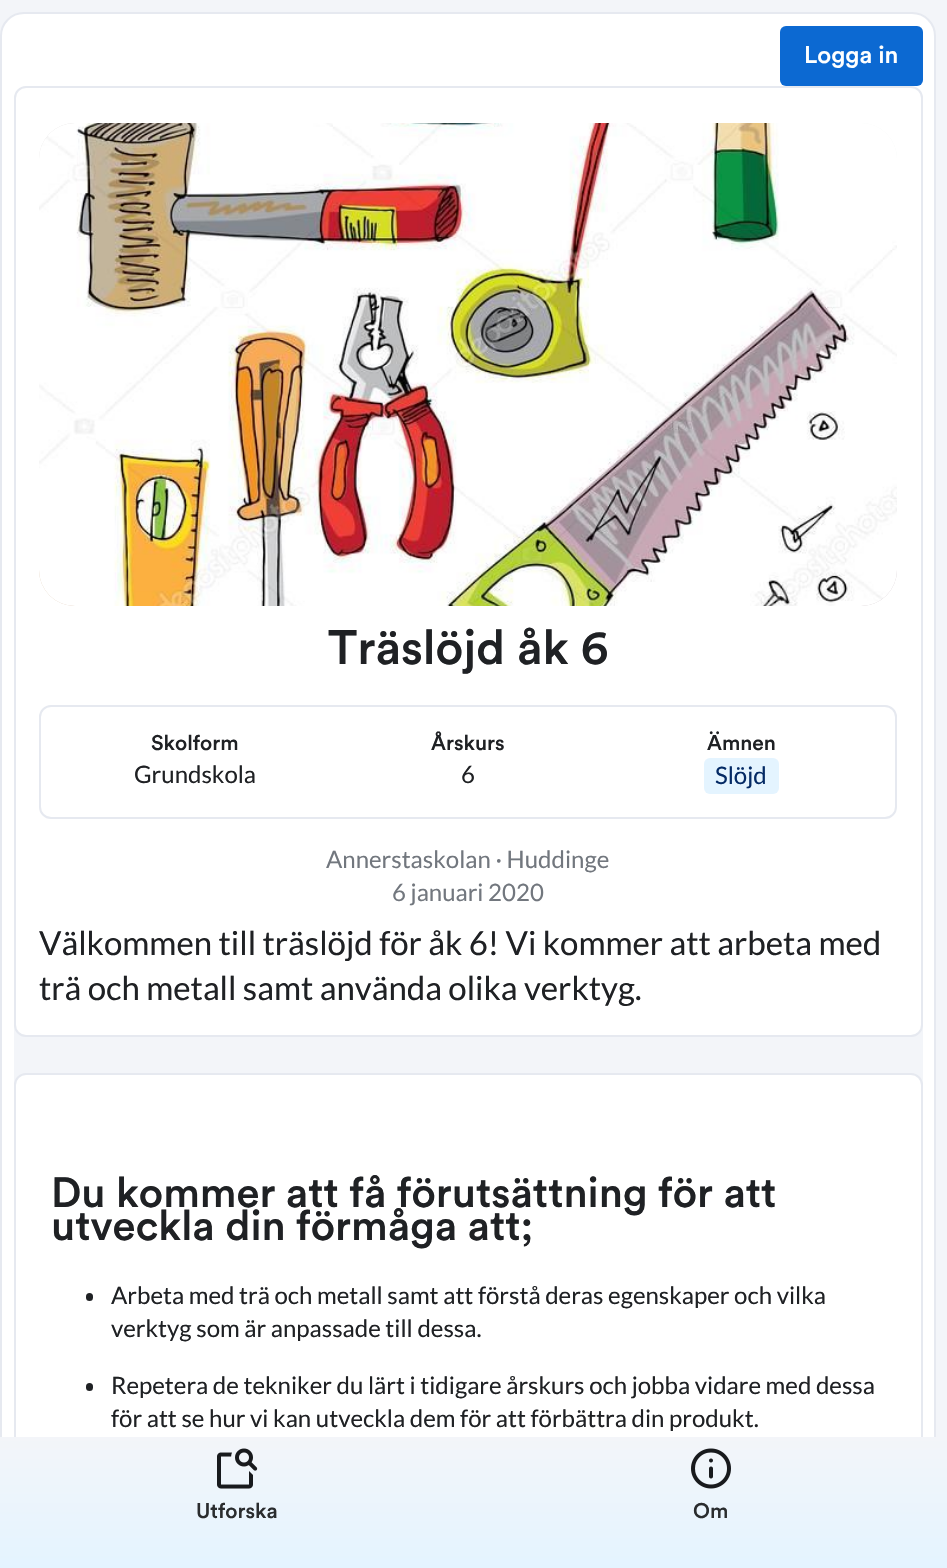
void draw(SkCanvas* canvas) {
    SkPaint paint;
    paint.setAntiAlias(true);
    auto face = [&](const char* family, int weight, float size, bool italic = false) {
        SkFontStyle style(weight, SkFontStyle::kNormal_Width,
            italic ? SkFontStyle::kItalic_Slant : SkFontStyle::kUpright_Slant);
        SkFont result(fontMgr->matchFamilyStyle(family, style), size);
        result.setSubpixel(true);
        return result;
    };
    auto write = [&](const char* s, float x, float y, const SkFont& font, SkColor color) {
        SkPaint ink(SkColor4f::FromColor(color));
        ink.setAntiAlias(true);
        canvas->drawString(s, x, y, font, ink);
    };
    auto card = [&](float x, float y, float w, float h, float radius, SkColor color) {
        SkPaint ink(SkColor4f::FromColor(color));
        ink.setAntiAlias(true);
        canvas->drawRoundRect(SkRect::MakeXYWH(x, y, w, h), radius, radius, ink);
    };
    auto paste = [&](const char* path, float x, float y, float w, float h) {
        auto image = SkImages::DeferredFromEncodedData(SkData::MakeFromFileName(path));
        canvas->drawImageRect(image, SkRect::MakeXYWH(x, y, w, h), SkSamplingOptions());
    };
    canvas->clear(SkColorSetRGB(243, 245, 249));
    paint.setColor(SK_ColorWHITE);
    canvas->drawRoundRect(SkRect::MakeXYWH(1, 13, 934, 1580), 23, 23, paint);
    paint.setStyle(SkPaint::kStroke_Style);
    paint.setStrokeWidth(2);
    paint.setColor(SkColorSetRGB(230, 233, 240));
    canvas->drawRoundRect(SkRect::MakeXYWH(1, 13, 934, 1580), 23, 23, paint);
    card(780, 26, 143, 60, 6, SkColorSetRGB(12, 105, 210));
    auto kFont1 = face("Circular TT", 500, 24);
    write("Logga in", 804, 63, kFont1, SK_ColorWHITE);
    card(14, 86, 909, 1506, 24, SkColorSetRGB(243, 245, 249));
    paint.setStyle(SkPaint::kFill_Style);
    paint.setColor(SK_ColorWHITE);
    canvas->drawRoundRect(SkRect::MakeXYWH(15, 87, 907, 949), 11, 11, paint);
    paint.setStyle(SkPaint::kStroke_Style);
    paint.setColor(SkColorSetRGB(230, 233, 240));
    canvas->drawRoundRect(SkRect::MakeXYWH(15, 87, 907, 949), 11, 11, paint);
    paste("pic1.png", 39, 123, 858, 483);
    paste("pic2.png", 39, 123, 858, 483);
    auto kFont2 = face("Circular TT", 500, 48);
    write("Träslöjd åk 6", 328, 664, kFont2, SkColorSetRGB(31, 33, 36));
    canvas->drawRoundRect(SkRect::MakeXYWH(40, 706, 856, 112), 11, 11, paint);
    auto kFont3 = face("Circular TT", 500, 21);
    write("Skolform", 151, 750, kFont3, SkColorSetRGB(31, 33, 36));
    auto kFont4 = face("Lato", 400, 24);
    write("Grundskola", 134, 783, kFont4, SkColorSetRGB(31, 33, 36));
    write("Årskurs", 431, 750, kFont3, SkColorSetRGB(31, 33, 36));
    write("6", 461, 783, kFont4, SkColorSetRGB(31, 33, 36));
    write("Ämnen", 707, 750, kFont3, SkColorSetRGB(31, 33, 36));
    card(704, 758, 75, 36, 6, SkColorSetRGB(228, 244, 255));
    write("Slöjd", 715, 784, kFont4, SkColorSetRGB(4, 42, 101));
    write("Annerstaskolan · Huddinge", 326, 868, kFont4, SkColorSetRGB(114, 119, 126));
    write("6 januari 2020", 392, 901, kFont4, SkColorSetRGB(114, 119, 126));
    auto kFont5 = face("Lato", 400, 33);
    write("Välkommen till träslöjd för åk 6! Vi kommer att arbeta med", 39, 955, kFont5, SkColorSetRGB(31, 33, 36));
    write("trä och metall samt använda olika verktyg.", 39, 1000, kFont5, SkColorSetRGB(31, 33, 36));
    paint.setStyle(SkPaint::kFill_Style);
    paint.setColor(SK_ColorWHITE);
    canvas->drawRoundRect(SkRect::MakeXYWH(15, 1074, 907, 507), 11, 11, paint);
    paint.setStyle(SkPaint::kStroke_Style);
    paint.setColor(SkColorSetRGB(230, 233, 240));
    canvas->drawRoundRect(SkRect::MakeXYWH(15, 1074, 907, 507), 11, 11, paint);
    auto kFont6 = face("Circular", 500, 42);
    write("Du kommer att få förutsättning för att", 51, 1207, kFont6, SkColorSetRGB(31, 33, 36));
    write("utveckla din förmåga att;", 51, 1240, kFont6, SkColorSetRGB(31, 33, 36));
    card(86, 1293, 7, 8, 3.5f, SkColorSetRGB(31, 33, 36));
    write("Arbeta med trä och metall samt att förstå deras egenskaper och vilka", 111, 1304, kFont4, SkColorSetRGB(31, 33, 36));
    write("verktyg som är anpassade till dessa.", 111, 1337, kFont4, SkColorSetRGB(31, 33, 36));
    card(86, 1383, 7, 8, 3.5f, SkColorSetRGB(31, 33, 36));
    write("Repetera de tekniker du lärt i tidigare årskurs och jobba vidare med dessa", 111, 1394, kFont4, SkColorSetRGB(31, 33, 36));
    write("för att se hur vi kan utveckla dem för att förbättra din produkt.", 111, 1427, kFont4, SkColorSetRGB(31, 33, 36));
    paint.setStyle(SkPaint::kFill_Style);
    {
        const SkColor colors[] = {SkColorSetRGB(243, 245, 249), SkColorSetRGB(228, 244, 255)};
        const float stops[] = {0, 1};
        const SkPoint ends[] = {{474, 1437}, {474, 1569}};
        paint.setShader(SkGradientShader::MakeLinear(ends, colors, stops, 2, SkTileMode::kClamp));
        paint.setAlpha(255);
    }
    canvas->drawRect(SkRect::MakeXYWH(0, 1437, 947, 131), paint);
    paste("pic3.png", 217, 1448, 41, 41);
    write("Utforska", 196, 1518, kFont3, SkColorSetRGB(42, 44, 46));
    paste("pic4.png", 691, 1448, 40, 41);
    write("Om", 693, 1518, kFont3, SkColorSetRGB(42, 44, 46));
}
